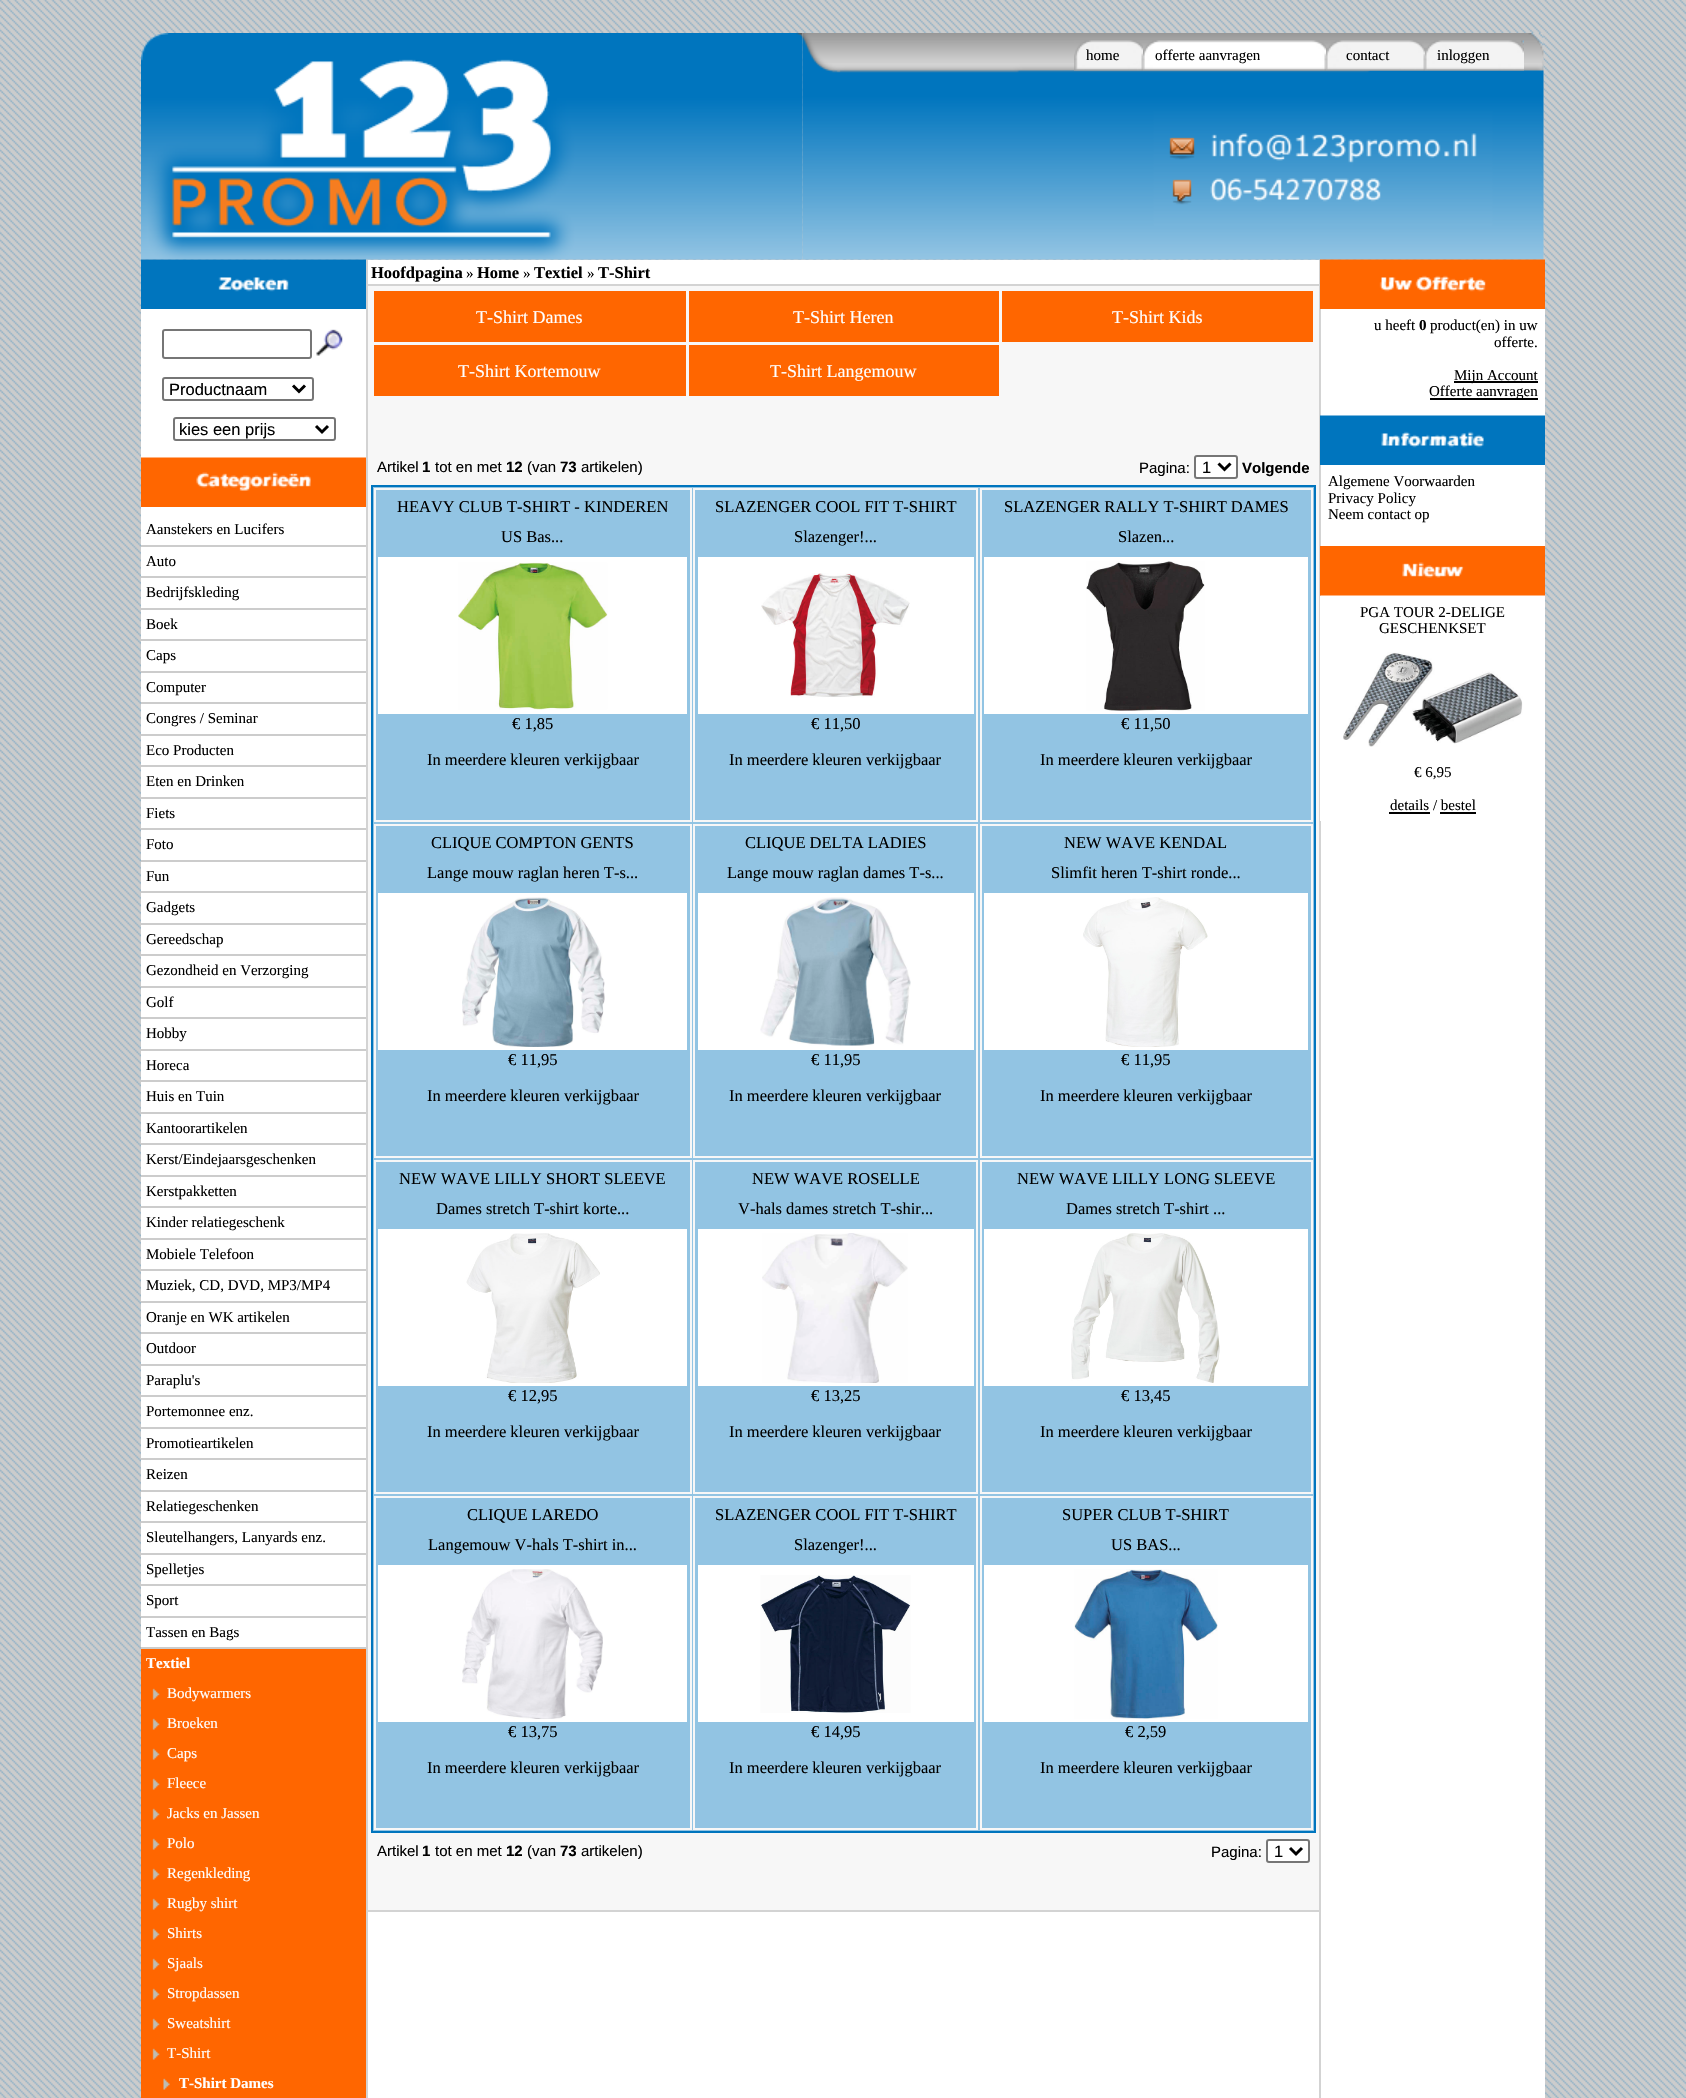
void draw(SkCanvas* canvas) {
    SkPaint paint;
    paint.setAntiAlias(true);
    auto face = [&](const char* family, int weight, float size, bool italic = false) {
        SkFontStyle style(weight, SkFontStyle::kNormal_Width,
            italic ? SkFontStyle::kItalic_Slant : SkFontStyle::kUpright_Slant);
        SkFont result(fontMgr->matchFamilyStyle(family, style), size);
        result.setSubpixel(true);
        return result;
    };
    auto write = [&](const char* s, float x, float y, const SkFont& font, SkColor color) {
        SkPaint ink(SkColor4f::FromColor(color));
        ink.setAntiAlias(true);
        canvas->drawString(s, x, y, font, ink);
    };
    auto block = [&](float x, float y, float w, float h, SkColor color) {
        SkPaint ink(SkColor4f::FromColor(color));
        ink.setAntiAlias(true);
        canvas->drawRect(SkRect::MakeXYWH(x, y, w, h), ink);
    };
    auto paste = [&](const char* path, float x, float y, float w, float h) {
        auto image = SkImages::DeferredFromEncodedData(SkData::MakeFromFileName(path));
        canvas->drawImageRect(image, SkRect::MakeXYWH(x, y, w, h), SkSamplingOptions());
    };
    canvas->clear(SK_ColorWHITE);
    paste("pic1.png", 0, 0, 1686, 2098);
    paste("pic2.png", 141, 33, 662, 227);
    paste("pic3.png", 802, 33, 742, 227);
    paste("pic4.png", 1074, 40, 69, 31);
    auto kFont1 = face("Liberation Serif", 400, 15);
    write("home", 1086, 60, kFont1, SK_ColorBLACK);
    paste("pic5.png", 1143, 40, 183, 31);
    write("offerte aanvragen", 1155, 60, kFont1, SK_ColorBLACK);
    paste("pic6.png", 1326, 40, 99, 31);
    write("contact", 1346, 60, kFont1, SK_ColorBLACK);
    paste("pic7.png", 1425, 40, 99, 31);
    write("inloggen", 1437, 60, kFont1, SK_ColorBLACK);
    block(141, 260, 1404, 1838, SK_ColorWHITE);
    paste("pic8.png", 141, 259, 225, 50);
    paint.setStyle(SkPaint::kStroke_Style);
    paint.setStrokeWidth(2);
    paint.setColor(SkColorSetRGB(118, 118, 118));
    canvas->drawRoundRect(SkRect::MakeXYWH(163, 330, 148, 28), 2, 2, paint);
    paste("pic9.png", 316, 329, 27, 27);
    canvas->drawRoundRect(SkRect::MakeXYWH(163, 378, 150, 22), 2, 2, paint);
    paint.setStrokeWidth(3);
    paint.setColor(SK_ColorBLACK);
    canvas->drawPath(SkPathBuilder().moveTo(293, 385.5f).lineTo(299, 391.5f).lineTo(305, 385.5f).detach(), paint);
    auto kFont2 = face("Liberation Sans", 400, 16.5f);
    write("Productnaam", 169, 395, kFont2, SK_ColorBLACK);
    paint.setStrokeWidth(2);
    paint.setColor(SkColorSetRGB(118, 118, 118));
    canvas->drawRoundRect(SkRect::MakeXYWH(174, 418, 161, 22), 2, 2, paint);
    paint.setStrokeWidth(3);
    paint.setColor(SK_ColorBLACK);
    canvas->drawPath(SkPathBuilder().moveTo(316, 426).lineTo(322, 432).lineTo(328, 426).detach(), paint);
    write("kies een prijs", 179, 435, kFont2, SK_ColorBLACK);
    paste("pic10.png", 141, 457, 225, 50);
    block(141, 545, 225, 2, SkColorSetRGB(204, 204, 204));
    write("Aanstekers en Lucifers", 146, 534, kFont1, SK_ColorBLACK);
    block(141, 576, 225, 2, SkColorSetRGB(204, 204, 204));
    write("Auto", 146, 566, kFont1, SK_ColorBLACK);
    block(141, 608, 225, 2, SkColorSetRGB(204, 204, 204));
    write("Bedrijfskleding", 146, 597, kFont1, SK_ColorBLACK);
    block(141, 639, 225, 2, SkColorSetRGB(204, 204, 204));
    write("Boek", 146, 629, kFont1, SK_ColorBLACK);
    block(141, 671, 225, 2, SkColorSetRGB(204, 204, 204));
    write("Caps", 146, 660, kFont1, SK_ColorBLACK);
    block(141, 702, 225, 2, SkColorSetRGB(204, 204, 204));
    write("Computer", 146, 692, kFont1, SK_ColorBLACK);
    block(141, 734, 225, 2, SkColorSetRGB(204, 204, 204));
    write("Congres / Seminar", 146, 723, kFont1, SK_ColorBLACK);
    block(141, 765, 225, 2, SkColorSetRGB(204, 204, 204));
    write("Eco Producten", 146, 755, kFont1, SK_ColorBLACK);
    block(141, 797, 225, 2, SkColorSetRGB(204, 204, 204));
    write("Eten en Drinken", 146, 786, kFont1, SK_ColorBLACK);
    block(141, 828, 225, 2, SkColorSetRGB(204, 204, 204));
    write("Fiets", 146, 818, kFont1, SK_ColorBLACK);
    block(141, 860, 225, 2, SkColorSetRGB(204, 204, 204));
    write("Foto", 146, 849, kFont1, SK_ColorBLACK);
    block(141, 891, 225, 2, SkColorSetRGB(204, 204, 204));
    write("Fun", 146, 881, kFont1, SK_ColorBLACK);
    block(141, 923, 225, 2, SkColorSetRGB(204, 204, 204));
    write("Gadgets", 146, 912, kFont1, SK_ColorBLACK);
    block(141, 954, 225, 2, SkColorSetRGB(204, 204, 204));
    write("Gereedschap", 146, 944, kFont1, SK_ColorBLACK);
    block(141, 986, 225, 2, SkColorSetRGB(204, 204, 204));
    write("Gezondheid en Verzorging", 146, 975, kFont1, SK_ColorBLACK);
    block(141, 1017, 225, 2, SkColorSetRGB(204, 204, 204));
    write("Golf", 146, 1007, kFont1, SK_ColorBLACK);
    block(141, 1049, 225, 2, SkColorSetRGB(204, 204, 204));
    write("Hobby", 146, 1038, kFont1, SK_ColorBLACK);
    block(141, 1080, 225, 2, SkColorSetRGB(204, 204, 204));
    write("Horeca", 146, 1070, kFont1, SK_ColorBLACK);
    block(141, 1112, 225, 2, SkColorSetRGB(204, 204, 204));
    write("Huis en Tuin", 146, 1101, kFont1, SK_ColorBLACK);
    block(141, 1143, 225, 2, SkColorSetRGB(204, 204, 204));
    write("Kantoorartikelen", 146, 1133, kFont1, SK_ColorBLACK);
    block(141, 1175, 225, 2, SkColorSetRGB(204, 204, 204));
    write("Kerst/Eindejaarsgeschenken", 146, 1164, kFont1, SK_ColorBLACK);
    block(141, 1206, 225, 2, SkColorSetRGB(204, 204, 204));
    write("Kerstpakketten", 146, 1196, kFont1, SK_ColorBLACK);
    block(141, 1238, 225, 2, SkColorSetRGB(204, 204, 204));
    write("Kinder relatiegeschenk", 146, 1227, kFont1, SK_ColorBLACK);
    block(141, 1269, 225, 2, SkColorSetRGB(204, 204, 204));
    write("Mobiele Telefoon", 146, 1259, kFont1, SK_ColorBLACK);
    block(141, 1301, 225, 2, SkColorSetRGB(204, 204, 204));
    write("Muziek, CD, DVD, MP3/MP4", 146, 1290, kFont1, SK_ColorBLACK);
    block(141, 1332, 225, 2, SkColorSetRGB(204, 204, 204));
    write("Oranje en WK artikelen", 146, 1322, kFont1, SK_ColorBLACK);
    block(141, 1364, 225, 2, SkColorSetRGB(204, 204, 204));
    write("Outdoor", 146, 1353, kFont1, SK_ColorBLACK);
    block(141, 1395, 225, 2, SkColorSetRGB(204, 204, 204));
    write("Paraplu's", 146, 1385, kFont1, SK_ColorBLACK);
    block(141, 1427, 225, 2, SkColorSetRGB(204, 204, 204));
    write("Portemonnee enz.", 146, 1416, kFont1, SK_ColorBLACK);
    block(141, 1458, 225, 2, SkColorSetRGB(204, 204, 204));
    write("Promotieartikelen", 146, 1448, kFont1, SK_ColorBLACK);
    block(141, 1490, 225, 2, SkColorSetRGB(204, 204, 204));
    write("Reizen", 146, 1479, kFont1, SK_ColorBLACK);
    block(141, 1521, 225, 2, SkColorSetRGB(204, 204, 204));
    write("Relatiegeschenken", 146, 1511, kFont1, SK_ColorBLACK);
    block(141, 1553, 225, 2, SkColorSetRGB(204, 204, 204));
    write("Sleutelhangers, Lanyards enz.", 146, 1542, kFont1, SK_ColorBLACK);
    block(141, 1584, 225, 2, SkColorSetRGB(204, 204, 204));
    write("Spelletjes", 146, 1574, kFont1, SK_ColorBLACK);
    block(141, 1616, 225, 2, SkColorSetRGB(204, 204, 204));
    write("Sport", 146, 1605, kFont1, SK_ColorBLACK);
    block(141, 1647, 225, 2, SkColorSetRGB(204, 204, 204));
    write("Tassen en Bags", 146, 1637, kFont1, SK_ColorBLACK);
    block(141, 1649, 225, 449, SkColorSetRGB(255, 102, 0));
    auto kFont3 = face("Liberation Serif", 700, 15);
    write("Textiel", 146, 1668, kFont3, SK_ColorWHITE);
    paste("pic11.png", 152, 1688, 8, 12);
    write("Bodywarmers", 167, 1698, kFont1, SK_ColorWHITE);
    paste("pic11.png", 152, 1718, 8, 12);
    write("Broeken", 167, 1728, kFont1, SK_ColorWHITE);
    paste("pic11.png", 152, 1748, 8, 12);
    write("Caps", 167, 1758, kFont1, SK_ColorWHITE);
    paste("pic11.png", 152, 1778, 8, 12);
    write("Fleece", 167, 1788, kFont1, SK_ColorWHITE);
    paste("pic11.png", 152, 1808, 8, 12);
    write("Jacks en Jassen", 167, 1818, kFont1, SK_ColorWHITE);
    paste("pic11.png", 152, 1838, 8, 12);
    write("Polo", 167, 1848, kFont1, SK_ColorWHITE);
    paste("pic11.png", 152, 1868, 8, 12);
    write("Regenkleding", 167, 1878, kFont1, SK_ColorWHITE);
    paste("pic11.png", 152, 1898, 8, 12);
    write("Rugby shirt", 167, 1908, kFont1, SK_ColorWHITE);
    paste("pic11.png", 152, 1928, 8, 12);
    write("Shirts", 167, 1938, kFont1, SK_ColorWHITE);
    paste("pic11.png", 152, 1958, 8, 12);
    write("Sjaals", 167, 1968, kFont1, SK_ColorWHITE);
    paste("pic11.png", 152, 1988, 8, 12);
    write("Stropdassen", 167, 1998, kFont1, SK_ColorWHITE);
    paste("pic11.png", 152, 2018, 8, 12);
    write("Sweatshirt", 167, 2028, kFont1, SK_ColorWHITE);
    paste("pic11.png", 152, 2048, 8, 12);
    write("T-Shirt", 167, 2058, kFont1, SK_ColorWHITE);
    paste("pic12.png", 163, 2078, 7, 12);
    write("T-Shirt Dames", 179, 2088, kFont3, SK_ColorWHITE);
    block(1319, 260, 2, 1838, SkColorSetRGB(211, 211, 211));
    block(366, 260, 2, 1838, SkColorSetRGB(211, 211, 211));
    auto kFont4 = face("Liberation Serif", 700, 16.5f);
    write("Hoofdpagina", 371, 278, kFont4, SK_ColorBLACK);
    write("»", 466, 278, kFont1, SK_ColorBLACK);
    write("Home", 477, 278, kFont4, SK_ColorBLACK);
    write("»", 523, 278, kFont1, SK_ColorBLACK);
    write("Textiel", 534, 278, kFont4, SK_ColorBLACK);
    write("»", 587, 278, kFont1, SK_ColorBLACK);
    write("T-Shirt", 598, 278, kFont4, SK_ColorBLACK);
    block(368, 286, 951, 1624, SkColorSetRGB(247, 247, 247));
    block(368, 284, 951, 2, SkColorSetRGB(211, 211, 211));
    block(368, 1910, 951, 2, SkColorSetRGB(211, 211, 211));
    block(374, 291, 312, 51, SkColorSetRGB(255, 102, 0));
    auto kFont5 = face("Liberation Serif", 400, 18);
    write("T-Shirt Dames", 476, 323, kFont5, SK_ColorWHITE);
    block(689, 291, 310, 51, SkColorSetRGB(255, 102, 0));
    write("T-Shirt Heren", 793, 323, kFont5, SK_ColorWHITE);
    block(1002, 291, 311, 51, SkColorSetRGB(255, 102, 0));
    write("T-Shirt Kids", 1112, 323, kFont5, SK_ColorWHITE);
    block(374, 345, 312, 51, SkColorSetRGB(255, 102, 0));
    write("T-Shirt Kortemouw", 458, 377, kFont5, SK_ColorWHITE);
    block(689, 345, 310, 51, SkColorSetRGB(255, 102, 0));
    write("T-Shirt Langemouw", 770, 377, kFont5, SK_ColorWHITE);
    auto kFont6 = face("Liberation Sans", 400, 15);
    write("Artikel", 377, 472, kFont6, SK_ColorBLACK);
    auto kFont7 = face("Liberation Sans", 700, 15);
    write("1", 422, 472, kFont7, SK_ColorBLACK);
    write("tot en met", 435, 472, kFont6, SK_ColorBLACK);
    write("12", 506, 472, kFont7, SK_ColorBLACK);
    write("(van", 527, 472, kFont6, SK_ColorBLACK);
    write("73", 560, 472, kFont7, SK_ColorBLACK);
    write("artikelen)", 581, 472, kFont6, SK_ColorBLACK);
    write("Pagina:", 1139, 473, kFont6, SK_ColorBLACK);
    paint.setStyle(SkPaint::kFill_Style);
    paint.setColor(SK_ColorWHITE);
    canvas->drawRoundRect(SkRect::MakeXYWH(1195, 456, 42, 22), 2, 2, paint);
    paint.setStyle(SkPaint::kStroke_Style);
    paint.setStrokeWidth(2);
    paint.setColor(SkColorSetRGB(118, 118, 118));
    canvas->drawRoundRect(SkRect::MakeXYWH(1195, 456, 42, 22), 2, 2, paint);
    paint.setStrokeWidth(3);
    paint.setColor(SK_ColorBLACK);
    canvas->drawPath(SkPathBuilder().moveTo(1218.5f, 463.5f).lineTo(1224.5f, 469.5f).lineTo(1230.5f, 463.5f).detach(), paint);
    write("1", 1202, 473, kFont2, SK_ColorBLACK);
    write("Volgende", 1242, 473, kFont7, SK_ColorBLACK);
    paint.setStyle(SkPaint::kFill_Style);
    paint.setColor(SkColorSetRGB(146, 196, 227));
    canvas->drawRect(SkRect::MakeXYWH(372, 486, 943, 1346), paint);
    paint.setStyle(SkPaint::kStroke_Style);
    paint.setStrokeWidth(2);
    paint.setColor(SkColorSetRGB(0, 117, 190));
    canvas->drawRect(SkRect::MakeXYWH(372, 486, 943, 1346), paint);
    paint.setColor(SkColorSetRGB(247, 247, 247));
    canvas->drawRect(SkRect::MakeXYWH(375, 489, 316, 332), paint);
    auto kFont8 = face("Liberation Serif", 400, 16.5f);
    write("HEAVY CLUB T-SHIRT - KINDEREN", 397, 512, kFont8, SK_ColorBLACK);
    write("US Bas...", 501, 542, kFont8, SK_ColorBLACK);
    block(378, 557, 309, 157, SK_ColorWHITE);
    paste("pic13.png", 458, 562, 150, 148);
    write("€ 1,85", 512, 729, kFont8, SK_ColorBLACK);
    write("In meerdere kleuren verkijgbaar", 427, 765, kFont8, SK_ColorBLACK);
    canvas->drawRect(SkRect::MakeXYWH(694, 489, 283, 332), paint);
    write("SLAZENGER COOL FIT T-SHIRT", 715, 512, kFont8, SK_ColorBLACK);
    write("Slazenger!...", 794, 542, kFont8, SK_ColorBLACK);
    block(698, 557, 276, 157, SK_ColorWHITE);
    paste("pic14.png", 761, 573, 149, 125);
    write("€ 11,50", 811, 729, kFont8, SK_ColorBLACK);
    write("In meerdere kleuren verkijgbaar", 729, 765, kFont8, SK_ColorBLACK);
    canvas->drawRect(SkRect::MakeXYWH(981, 489, 331, 332), paint);
    write("SLAZENGER RALLY T-SHIRT DAMES", 1004, 512, kFont8, SK_ColorBLACK);
    write("Slazen...", 1118, 542, kFont8, SK_ColorBLACK);
    block(984, 557, 324, 157, SK_ColorWHITE);
    paste("pic15.png", 1086, 561, 119, 150);
    write("€ 11,50", 1121, 729, kFont8, SK_ColorBLACK);
    write("In meerdere kleuren verkijgbaar", 1040, 765, kFont8, SK_ColorBLACK);
    canvas->drawRect(SkRect::MakeXYWH(375, 825, 316, 332), paint);
    write("CLIQUE COMPTON GENTS", 431, 848, kFont8, SK_ColorBLACK);
    write("Lange mouw raglan heren T-s...", 427, 878, kFont8, SK_ColorBLACK);
    block(378, 893, 309, 157, SK_ColorWHITE);
    paste("pic16.png", 462, 897, 143, 150);
    write("€ 11,95", 508, 1065, kFont8, SK_ColorBLACK);
    write("In meerdere kleuren verkijgbaar", 427, 1101, kFont8, SK_ColorBLACK);
    canvas->drawRect(SkRect::MakeXYWH(694, 825, 283, 332), paint);
    write("CLIQUE DELTA LADIES", 745, 848, kFont8, SK_ColorBLACK);
    write("Lange mouw raglan dames T-s...", 727, 878, kFont8, SK_ColorBLACK);
    block(698, 893, 276, 157, SK_ColorWHITE);
    paste("pic17.png", 760, 897, 151, 149);
    write("€ 11,95", 811, 1065, kFont8, SK_ColorBLACK);
    write("In meerdere kleuren verkijgbaar", 729, 1101, kFont8, SK_ColorBLACK);
    canvas->drawRect(SkRect::MakeXYWH(981, 825, 331, 332), paint);
    write("NEW WAVE KENDAL", 1064, 848, kFont8, SK_ColorBLACK);
    write("Slimfit heren T-shirt ronde...", 1051, 878, kFont8, SK_ColorBLACK);
    block(984, 893, 324, 157, SK_ColorWHITE);
    paste("pic18.png", 1083, 897, 125, 150);
    write("€ 11,95", 1121, 1065, kFont8, SK_ColorBLACK);
    write("In meerdere kleuren verkijgbaar", 1040, 1101, kFont8, SK_ColorBLACK);
    canvas->drawRect(SkRect::MakeXYWH(375, 1161, 316, 332), paint);
    write("NEW WAVE LILLY SHORT SLEEVE", 399, 1184, kFont8, SK_ColorBLACK);
    write("Dames stretch T-shirt korte...", 436, 1214, kFont8, SK_ColorBLACK);
    block(378, 1229, 309, 157, SK_ColorWHITE);
    paste("pic19.png", 466, 1233, 134, 150);
    write("€ 12,95", 508, 1401, kFont8, SK_ColorBLACK);
    write("In meerdere kleuren verkijgbaar", 427, 1437, kFont8, SK_ColorBLACK);
    canvas->drawRect(SkRect::MakeXYWH(694, 1161, 283, 332), paint);
    write("NEW WAVE ROSELLE", 752, 1184, kFont8, SK_ColorBLACK);
    write("V-hals dames stretch T-shir...", 738, 1214, kFont8, SK_ColorBLACK);
    block(698, 1229, 276, 157, SK_ColorWHITE);
    paste("pic20.png", 762, 1233, 146, 150);
    write("€ 13,25", 811, 1401, kFont8, SK_ColorBLACK);
    write("In meerdere kleuren verkijgbaar", 729, 1437, kFont8, SK_ColorBLACK);
    canvas->drawRect(SkRect::MakeXYWH(981, 1161, 331, 332), paint);
    write("NEW WAVE LILLY LONG SLEEVE", 1017, 1184, kFont8, SK_ColorBLACK);
    write("Dames stretch T-shirt ...", 1066, 1214, kFont8, SK_ColorBLACK);
    block(984, 1229, 324, 157, SK_ColorWHITE);
    paste("pic21.png", 1071, 1233, 149, 150);
    write("€ 13,45", 1121, 1401, kFont8, SK_ColorBLACK);
    write("In meerdere kleuren verkijgbaar", 1040, 1437, kFont8, SK_ColorBLACK);
    canvas->drawRect(SkRect::MakeXYWH(375, 1497, 316, 332), paint);
    write("CLIQUE LAREDO", 467, 1520, kFont8, SK_ColorBLACK);
    write("Langemouw V-hals T-shirt in...", 428, 1550, kFont8, SK_ColorBLACK);
    block(378, 1565, 309, 157, SK_ColorWHITE);
    paste("pic22.png", 462, 1569, 141, 150);
    write("€ 13,75", 508, 1737, kFont8, SK_ColorBLACK);
    write("In meerdere kleuren verkijgbaar", 427, 1773, kFont8, SK_ColorBLACK);
    canvas->drawRect(SkRect::MakeXYWH(694, 1497, 283, 332), paint);
    write("SLAZENGER COOL FIT T-SHIRT", 715, 1520, kFont8, SK_ColorBLACK);
    write("Slazenger!...", 794, 1550, kFont8, SK_ColorBLACK);
    block(698, 1565, 276, 157, SK_ColorWHITE);
    paste("pic23.png", 760, 1575, 151, 138);
    write("€ 14,95", 811, 1737, kFont8, SK_ColorBLACK);
    write("In meerdere kleuren verkijgbaar", 729, 1773, kFont8, SK_ColorBLACK);
    canvas->drawRect(SkRect::MakeXYWH(981, 1497, 331, 332), paint);
    write("SUPER CLUB T-SHIRT", 1062, 1520, kFont8, SK_ColorBLACK);
    write("US BAS...", 1111, 1550, kFont8, SK_ColorBLACK);
    block(984, 1565, 324, 157, SK_ColorWHITE);
    paste("pic24.png", 1074, 1569, 144, 150);
    write("€ 2,59", 1125, 1737, kFont8, SK_ColorBLACK);
    write("In meerdere kleuren verkijgbaar", 1040, 1773, kFont8, SK_ColorBLACK);
    write("Artikel", 377, 1856, kFont6, SK_ColorBLACK);
    write("1", 422, 1856, kFont7, SK_ColorBLACK);
    write("tot en met", 435, 1856, kFont6, SK_ColorBLACK);
    write("12", 506, 1856, kFont7, SK_ColorBLACK);
    write("(van", 527, 1856, kFont6, SK_ColorBLACK);
    write("73", 560, 1856, kFont7, SK_ColorBLACK);
    write("artikelen)", 581, 1856, kFont6, SK_ColorBLACK);
    write("Pagina:", 1211, 1857, kFont6, SK_ColorBLACK);
    paint.setStyle(SkPaint::kFill_Style);
    paint.setColor(SK_ColorWHITE);
    canvas->drawRoundRect(SkRect::MakeXYWH(1267, 1840, 42, 22), 2, 2, paint);
    paint.setStyle(SkPaint::kStroke_Style);
    paint.setColor(SkColorSetRGB(118, 118, 118));
    canvas->drawRoundRect(SkRect::MakeXYWH(1267, 1840, 42, 22), 2, 2, paint);
    paint.setStrokeWidth(3);
    paint.setColor(SK_ColorBLACK);
    canvas->drawPath(SkPathBuilder().moveTo(1290, 1848).lineTo(1296, 1854).lineTo(1302, 1848).detach(), paint);
    write("1", 1274, 1857, kFont2, SK_ColorBLACK);
    paste("pic25.png", 1320, 259, 225, 50);
    write("u heeft", 1374, 330, kFont1, SK_ColorBLACK);
    write("0", 1419, 330, kFont3, SK_ColorBLACK);
    write("product(en) in uw", 1430, 330, kFont1, SK_ColorBLACK);
    write("offerte.", 1494, 347, kFont1, SK_ColorBLACK);
    block(1454, 381, 84, 2, SK_ColorBLACK);
    write("Mijn Account", 1454, 380, kFont1, SK_ColorBLACK);
    block(1430, 398, 108, 2, SK_ColorBLACK);
    write("Offerte aanvragen", 1429, 396, kFont1, SK_ColorBLACK);
    paste("pic26.png", 1320, 415, 225, 50);
    write("Algemene Voorwaarden", 1328, 486, kFont1, SK_ColorBLACK);
    write("Privacy Policy", 1328, 503, kFont1, SK_ColorBLACK);
    write("Neem contact op", 1328, 519, kFont1, SK_ColorBLACK);
    paste("pic27.png", 1320, 546, 225, 50);
    block(1320, 596, 1, 225, SK_ColorWHITE);
    write("PGA TOUR 2-DELIGE", 1360, 617, kFont1, SK_ColorBLACK);
    write("GESCHENKSET", 1379, 633, kFont1, SK_ColorBLACK);
    paste("pic28.png", 1343, 652, 180, 95);
    write("€ 6,95", 1414, 777, kFont1, SK_ColorBLACK);
    write("details / bestel", 1390, 810, kFont1, SK_ColorBLACK);
    block(1389, 812, 41, 2, SK_ColorBLACK);
    block(1440, 812, 36, 2, SK_ColorBLACK);
}
